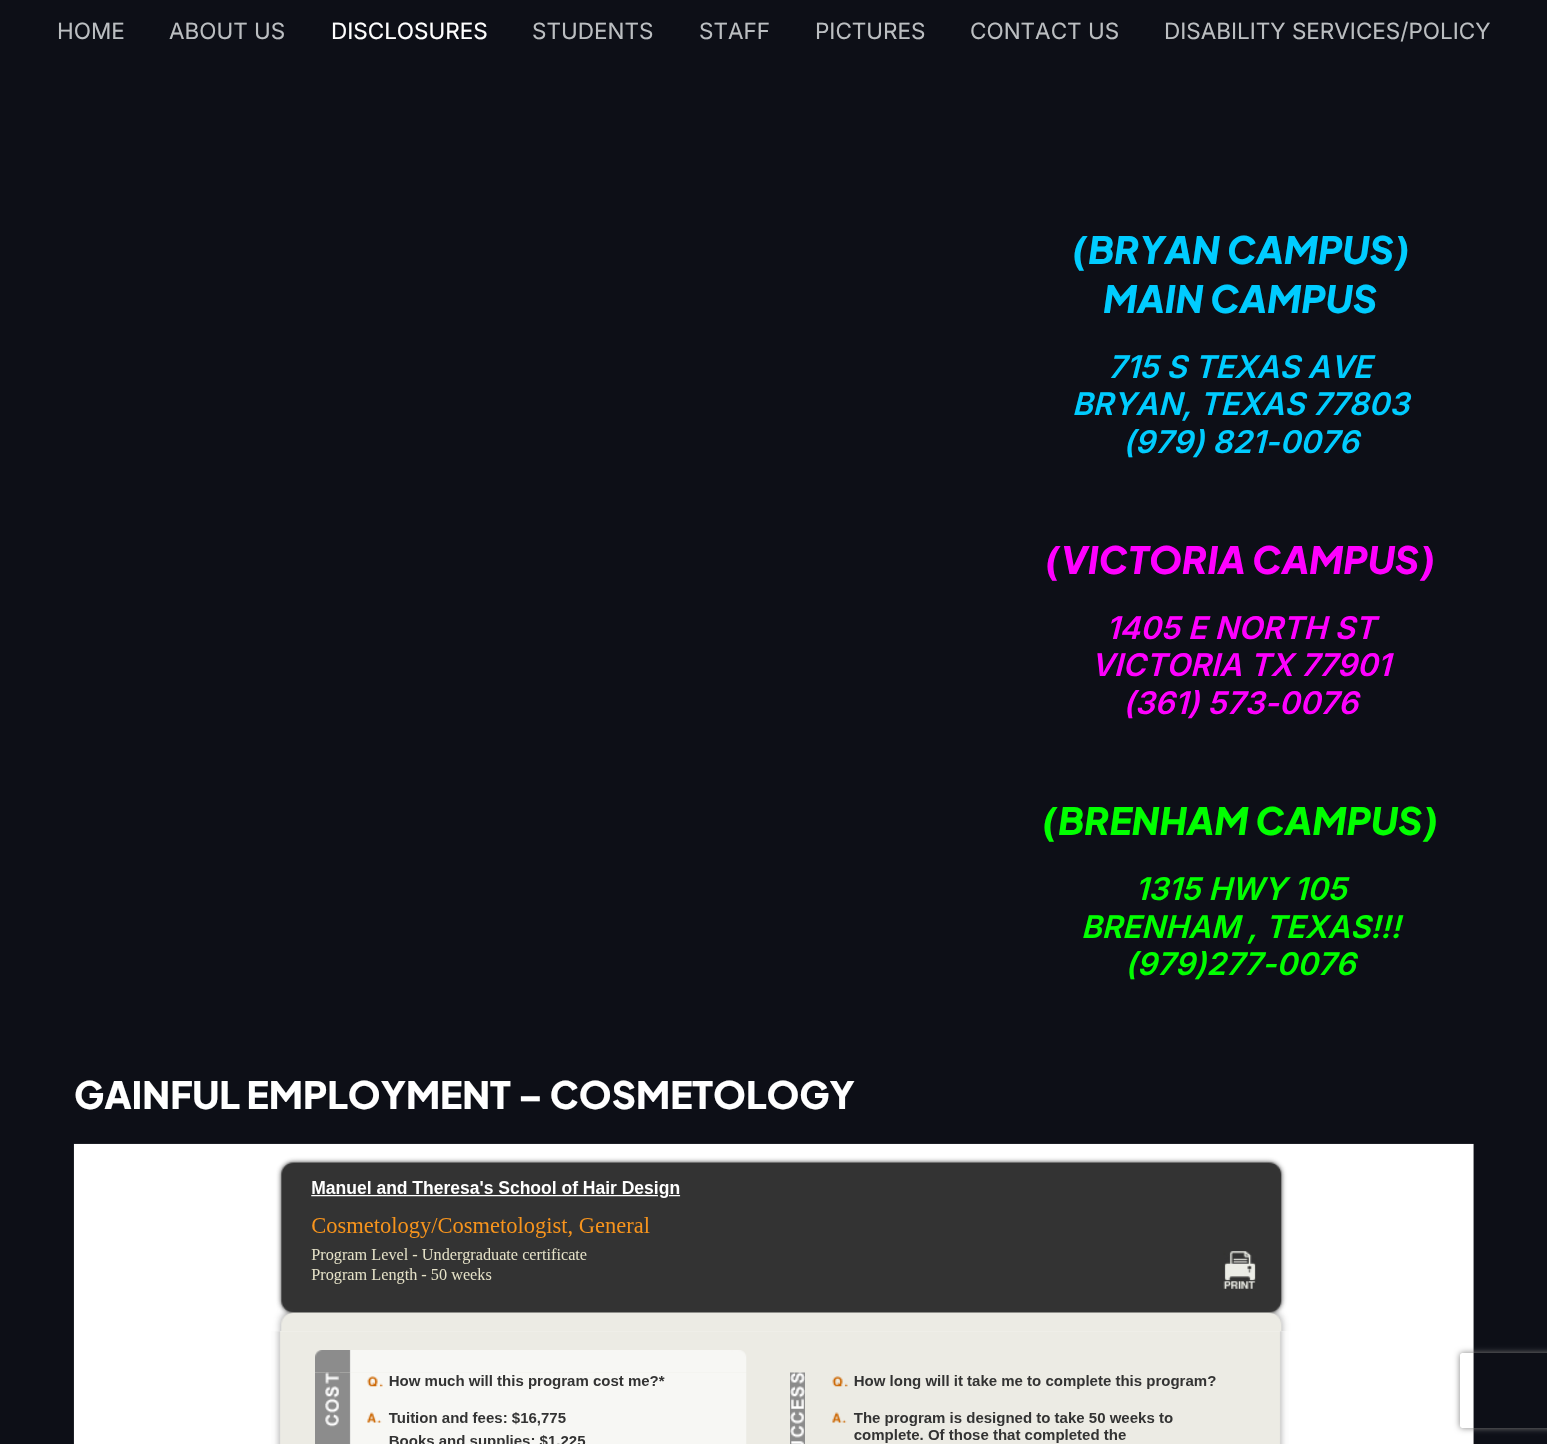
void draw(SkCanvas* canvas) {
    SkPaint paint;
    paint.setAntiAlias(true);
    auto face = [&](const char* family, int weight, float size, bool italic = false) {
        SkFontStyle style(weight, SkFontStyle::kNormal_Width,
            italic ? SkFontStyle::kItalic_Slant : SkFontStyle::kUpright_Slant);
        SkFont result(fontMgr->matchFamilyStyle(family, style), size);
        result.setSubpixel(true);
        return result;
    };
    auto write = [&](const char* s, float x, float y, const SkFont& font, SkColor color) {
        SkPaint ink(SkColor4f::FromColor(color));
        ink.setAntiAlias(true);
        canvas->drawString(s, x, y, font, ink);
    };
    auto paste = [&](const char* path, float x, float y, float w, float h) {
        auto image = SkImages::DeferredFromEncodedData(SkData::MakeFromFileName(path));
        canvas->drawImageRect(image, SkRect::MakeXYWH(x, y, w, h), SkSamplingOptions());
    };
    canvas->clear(SkColorSetRGB(13, 15, 23));
    auto kFont1 = face("Inter", 400, 22.5f);
    write("HOME", 57, 39, kFont1, SkColorSetRGB(187, 190, 193));
    write("ABOUT US", 169, 39, kFont1, SkColorSetRGB(187, 190, 193));
    write("DISCLOSURES", 331, 39, kFont1, SK_ColorWHITE);
    write("STUDENTS", 532, 39, kFont1, SkColorSetRGB(187, 190, 193));
    write("STAFF", 699, 39, kFont1, SkColorSetRGB(187, 190, 193));
    write("PICTURES", 815, 39, kFont1, SkColorSetRGB(187, 190, 193));
    write("CONTACT US", 970, 39, kFont1, SkColorSetRGB(187, 190, 193));
    write("DISABILITY SERVICES/POLICY", 1164, 39, kFont1, SkColorSetRGB(187, 190, 193));
    auto kFont2 = face("Plus Jakarta Sans", 800, 37.5f, true);
    write("(BRYAN CAMPUS)", 1072, 264, kFont2, SkColorSetRGB(0, 204, 255));
    write("MAIN CAMPUS", 1103, 313, kFont2, SkColorSetRGB(0, 204, 255));
    auto kFont3 = face("Inter", 600, 31.25f, true);
    write("715 S TEXAS AVE", 1108, 378, kFont3, SkColorSetRGB(0, 204, 255));
    write("BRYAN, TEXAS 77803", 1072, 415, kFont3, SkColorSetRGB(0, 204, 255));
    write("(979) 821-0076", 1123, 453, kFont3, SkColorSetRGB(0, 204, 255));
    write("(VICTORIA CAMPUS)", 1045, 574, kFont2, SkColorSetRGB(255, 0, 255));
    write("1405 E NORTH ST", 1106, 639, kFont3, SkColorSetRGB(255, 0, 255));
    write("VICTORIA TX 77901", 1091, 676, kFont3, SkColorSetRGB(255, 0, 255));
    write("(361) 573-0076", 1123, 714, kFont3, SkColorSetRGB(255, 0, 255));
    write("(BRENHAM CAMPUS)", 1042, 835, kFont2, SkColorSetRGB(1, 255, 0));
    write("1315 HWY 105", 1135, 900, kFont3, SkColorSetRGB(1, 255, 0));
    write("BRENHAM , TEXAS!!!", 1081, 938, kFont3, SkColorSetRGB(1, 255, 0));
    write("(979)277-0076", 1125, 975, kFont3, SkColorSetRGB(1, 255, 0));
    auto kFont4 = face("Plus Jakarta Sans", 800, 37.5f);
    write("GAINFUL EMPLOYMENT – COSMETOLOGY", 74, 1109, kFont4, SK_ColorWHITE);
    paste("pic1.png", 73, 1143, 1401, 301);
    canvas->save();
    canvas->clipPath(SkPathBuilder(SkPathFillType::kEvenOdd).moveTo(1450, 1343).lineTo(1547, 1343).lineTo(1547, 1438).lineTo(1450, 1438).close().moveTo(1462.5f, 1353).lineTo(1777.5f, 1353).cubicTo(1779, 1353, 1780, 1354, 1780, 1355.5f).lineTo(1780, 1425.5f).cubicTo(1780, 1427, 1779, 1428, 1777.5f, 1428).lineTo(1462.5f, 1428).cubicTo(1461, 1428, 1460, 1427, 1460, 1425.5f).lineTo(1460, 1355.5f).cubicTo(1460, 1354, 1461, 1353, 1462.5f, 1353).close().detach(), true);
    paint.setColor(SkColorSetRGB(128, 128, 128));
    paint.setMaskFilter(SkMaskFilter::MakeBlur(kNormal_SkBlurStyle, 3));
    canvas->drawRoundRect(SkRect::MakeXYWH(1460, 1353, 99, 75), 2.5f, 2.5f, paint);
    paint.setMaskFilter(nullptr);
    canvas->restore();
}
